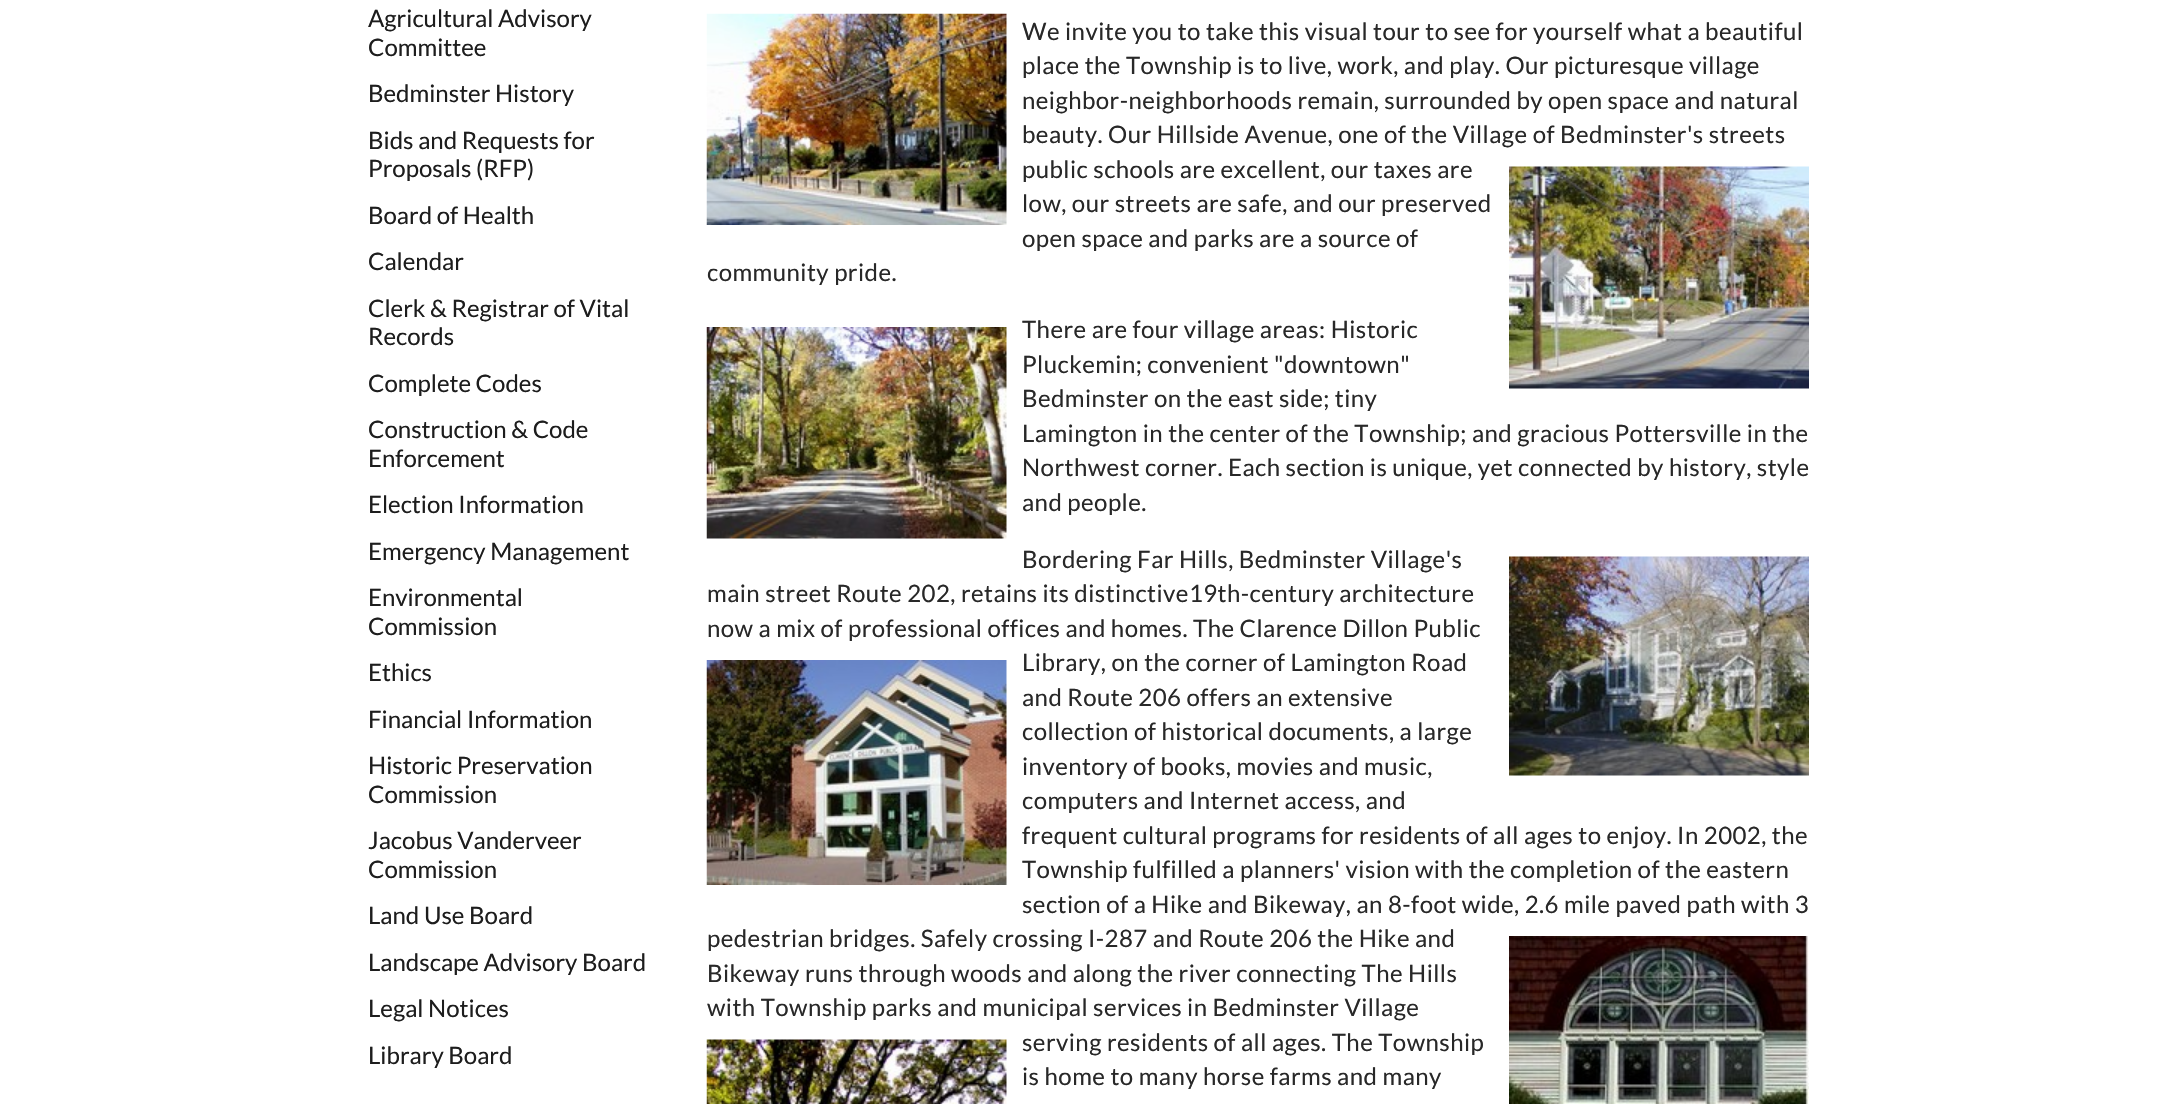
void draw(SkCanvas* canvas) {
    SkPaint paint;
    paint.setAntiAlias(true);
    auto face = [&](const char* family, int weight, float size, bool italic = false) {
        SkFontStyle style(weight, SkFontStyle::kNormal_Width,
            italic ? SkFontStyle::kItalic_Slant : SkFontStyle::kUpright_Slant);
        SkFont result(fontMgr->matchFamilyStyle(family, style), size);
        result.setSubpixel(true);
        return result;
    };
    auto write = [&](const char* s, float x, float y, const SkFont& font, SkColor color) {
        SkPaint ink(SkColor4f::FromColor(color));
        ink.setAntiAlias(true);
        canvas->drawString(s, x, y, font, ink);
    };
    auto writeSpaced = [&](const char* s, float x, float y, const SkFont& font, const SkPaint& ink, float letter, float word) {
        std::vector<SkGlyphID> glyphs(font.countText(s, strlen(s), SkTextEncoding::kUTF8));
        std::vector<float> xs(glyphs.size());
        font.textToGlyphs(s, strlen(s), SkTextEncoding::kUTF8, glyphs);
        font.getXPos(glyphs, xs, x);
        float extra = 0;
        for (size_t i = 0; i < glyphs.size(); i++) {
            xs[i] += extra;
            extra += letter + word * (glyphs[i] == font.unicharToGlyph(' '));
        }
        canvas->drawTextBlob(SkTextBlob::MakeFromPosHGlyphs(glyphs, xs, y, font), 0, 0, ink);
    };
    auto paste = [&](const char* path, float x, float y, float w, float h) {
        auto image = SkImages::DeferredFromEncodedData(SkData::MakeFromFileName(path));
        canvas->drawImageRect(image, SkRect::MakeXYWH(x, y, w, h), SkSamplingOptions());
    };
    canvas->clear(SK_ColorWHITE);
    auto kFont1 = face("Lato", 400, 24);
    write("Agricultural Advisory", 368, 27, kFont1, SkColorSetRGB(29, 29, 29));
    write("Committee", 368, 56, kFont1, SkColorSetRGB(29, 29, 29));
    write("Bedminster History", 368, 102, kFont1, SkColorSetRGB(29, 29, 29));
    write("Bids and Requests for", 368, 149, kFont1, SkColorSetRGB(29, 29, 29));
    write("Proposals (RFP)", 368, 177, kFont1, SkColorSetRGB(29, 29, 29));
    write("Board of Health", 368, 224, kFont1, SkColorSetRGB(29, 29, 29));
    write("Calendar", 368, 270, kFont1, SkColorSetRGB(29, 29, 29));
    write("Clerk & Registrar of Vital", 368, 317, kFont1, SkColorSetRGB(29, 29, 29));
    write("Records", 368, 345, kFont1, SkColorSetRGB(29, 29, 29));
    write("Complete Codes", 368, 392, kFont1, SkColorSetRGB(29, 29, 29));
    write("Construction & Code", 368, 438, kFont1, SkColorSetRGB(29, 29, 29));
    write("Enforcement", 368, 467, kFont1, SkColorSetRGB(29, 29, 29));
    write("Election Information", 368, 513, kFont1, SkColorSetRGB(29, 29, 29));
    write("Emergency Management", 368, 560, kFont1, SkColorSetRGB(29, 29, 29));
    write("Environmental", 368, 606, kFont1, SkColorSetRGB(29, 29, 29));
    write("Commission", 368, 635, kFont1, SkColorSetRGB(29, 29, 29));
    write("Ethics", 368, 681, kFont1, SkColorSetRGB(29, 29, 29));
    write("Financial Information", 368, 728, kFont1, SkColorSetRGB(29, 29, 29));
    write("Historic Preservation", 368, 774, kFont1, SkColorSetRGB(29, 29, 29));
    write("Commission", 368, 803, kFont1, SkColorSetRGB(29, 29, 29));
    write("Jacobus Vanderveer", 368, 849, kFont1, SkColorSetRGB(29, 29, 29));
    write("Commission", 368, 878, kFont1, SkColorSetRGB(29, 29, 29));
    write("Land Use Board", 368, 924, kFont1, SkColorSetRGB(29, 29, 29));
    write("Landscape Advisory Board", 368, 971, kFont1, SkColorSetRGB(29, 29, 29));
    write("Legal Notices", 368, 1017, kFont1, SkColorSetRGB(29, 29, 29));
    write("Library Board", 368, 1064, kFont1, SkColorSetRGB(29, 29, 29));
    paste("pic1.png", 706, 13, 301, 212);
    paint.setColor(SkColorSetRGB(40, 40, 40));
    writeSpaced("We invite you to take this visual tour to see for yourself what a beautiful", 1022, 40, kFont1, paint, 0.45f, 0);
    writeSpaced("place the Township is to live, work, and play. Our picturesque village", 1022, 74, kFont1, paint, 0.45f, 0);
    writeSpaced("neighbor-neighborhoods remain, surrounded by open space and natural", 1022, 109, kFont1, paint, 0.45f, 0);
    writeSpaced("beauty. Our Hillside Avenue, one of the Village of Bedminster's streets", 1022, 143, kFont1, paint, 0.45f, 0);
    writeSpaced("public schools are excellent, our taxes are", 1022, 178, kFont1, paint, 0.45f, 0);
    paste("pic2.png", 1509, 166, 300, 223);
    writeSpaced("low, our streets are safe, and our preserved", 1022, 212, kFont1, paint, 0.45f, 0);
    writeSpaced("open space and parks are a source of", 1022, 247, kFont1, paint, 0.45f, 0);
    writeSpaced("community pride.", 707, 281, kFont1, paint, 0.45f, 0);
    paste("pic3.png", 706, 327, 301, 212);
    writeSpaced("There are four village areas: Historic", 1022, 338, kFont1, paint, 0.45f, 0);
    writeSpaced("Pluckemin; convenient \"downtown\"", 1022, 373, kFont1, paint, 0.45f, 0);
    writeSpaced("Bedminster on the east side; tiny", 1022, 407, kFont1, paint, 0.45f, 0);
    writeSpaced("Lamington in the center of the Township; and gracious Pottersville in the", 1022, 442, kFont1, paint, 0.45f, 0);
    writeSpaced("Northwest corner. Each section is unique, yet connected by history, style", 1022, 476, kFont1, paint, 0.45f, 0);
    writeSpaced("and people.", 1022, 511, kFont1, paint, 0.45f, 0);
    writeSpaced("Bordering Far Hills, Bedminster Village's", 1022, 568, kFont1, paint, 0.45f, 0);
    paste("pic4.png", 1509, 556, 300, 220);
    writeSpaced("main street Route 202, retains its distinctive19th-century architecture", 707, 602, kFont1, paint, 0.45f, 0);
    writeSpaced("now a mix of professional offices and homes. The Clarence Dillon Public", 707, 637, kFont1, paint, 0.45f, 0);
    paste("pic5.png", 706, 660, 301, 225);
    writeSpaced("Library, on the corner of Lamington Road", 1022, 671, kFont1, paint, 0.45f, 0);
    writeSpaced("and Route 206 offers an extensive", 1022, 706, kFont1, paint, 0.45f, 0);
    writeSpaced("collection of historical documents, a large", 1022, 740, kFont1, paint, 0.45f, 0);
    writeSpaced("inventory of books, movies and music,", 1022, 775, kFont1, paint, 0.45f, 0);
    writeSpaced("computers and Internet access, and", 1022, 809, kFont1, paint, 0.45f, 0);
    writeSpaced("frequent cultural programs for residents of all ages to enjoy. In 2002, the", 1022, 844, kFont1, paint, 0.45f, 0);
    writeSpaced("Township fulfilled a planners' vision with the completion of the eastern", 1022, 878, kFont1, paint, 0.45f, 0);
    writeSpaced("section of a Hike and Bikeway, an 8-foot wide, 2.6 mile paved path with 3", 1022, 913, kFont1, paint, 0.45f, 0);
    writeSpaced("pedestrian bridges. Safely crossing I-287 and Route 206 the Hike and", 707, 947, kFont1, paint, 0.45f, 0);
    paste("pic6.png", 1509, 936, 300, 168);
    writeSpaced("Bikeway runs through woods and along the river connecting The Hills", 707, 982, kFont1, paint, 0.45f, 0);
    writeSpaced("with Township parks and municipal services in Bedminster Village", 707, 1016, kFont1, paint, 0.45f, 0);
    paste("pic7.png", 706, 1039, 301, 65);
    writeSpaced("serving residents of all ages. The Township", 1022, 1051, kFont1, paint, 0.45f, 0);
    writeSpaced("is home to many horse farms and many", 1022, 1085, kFont1, paint, 0.45f, 0);
}
